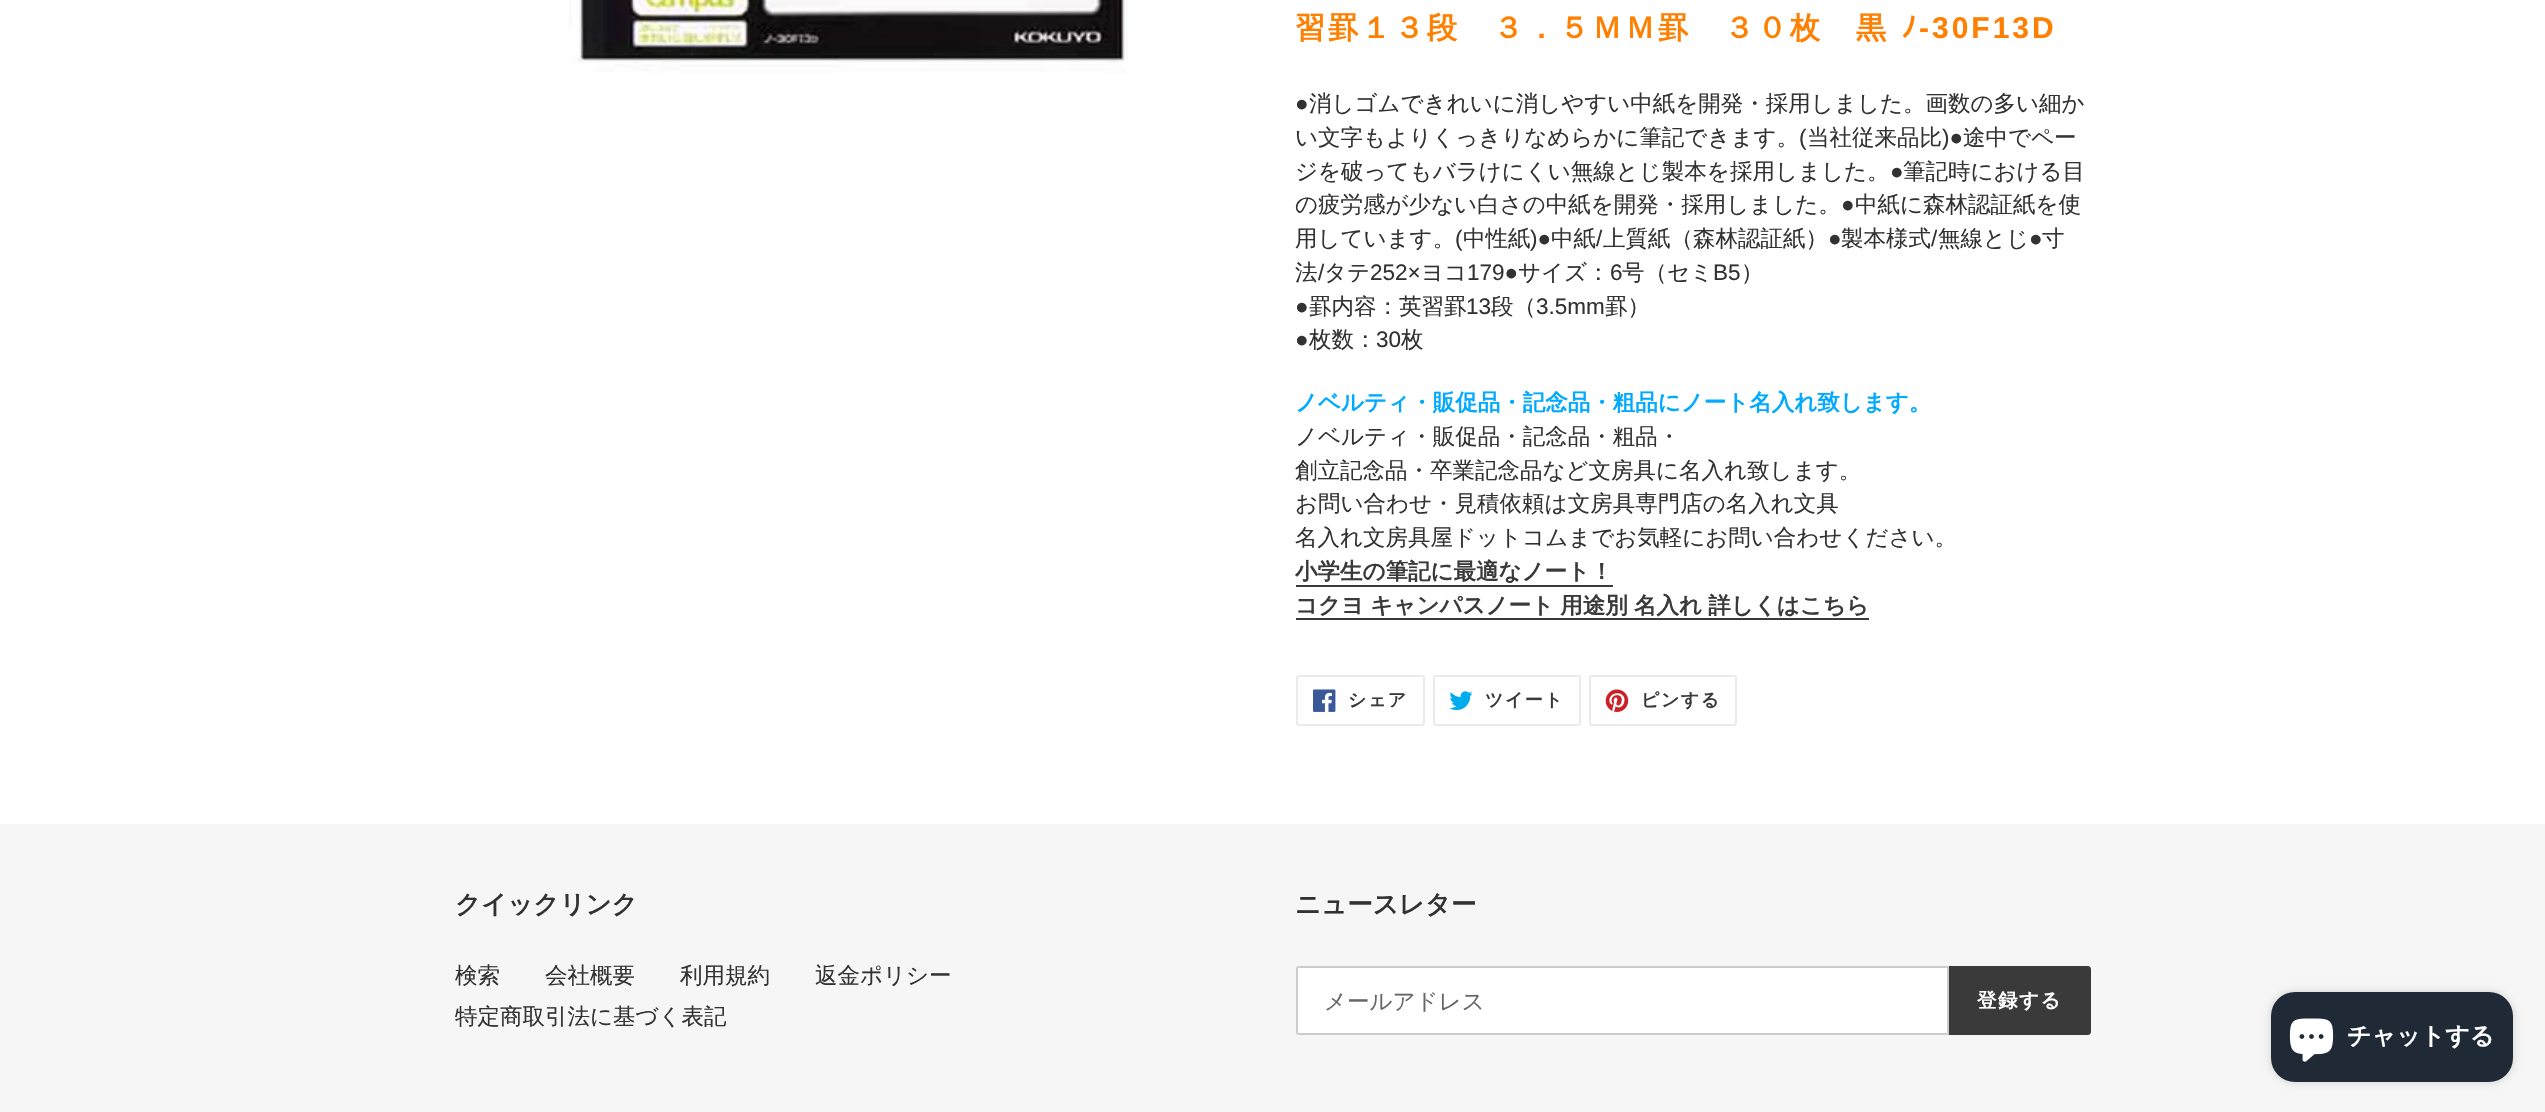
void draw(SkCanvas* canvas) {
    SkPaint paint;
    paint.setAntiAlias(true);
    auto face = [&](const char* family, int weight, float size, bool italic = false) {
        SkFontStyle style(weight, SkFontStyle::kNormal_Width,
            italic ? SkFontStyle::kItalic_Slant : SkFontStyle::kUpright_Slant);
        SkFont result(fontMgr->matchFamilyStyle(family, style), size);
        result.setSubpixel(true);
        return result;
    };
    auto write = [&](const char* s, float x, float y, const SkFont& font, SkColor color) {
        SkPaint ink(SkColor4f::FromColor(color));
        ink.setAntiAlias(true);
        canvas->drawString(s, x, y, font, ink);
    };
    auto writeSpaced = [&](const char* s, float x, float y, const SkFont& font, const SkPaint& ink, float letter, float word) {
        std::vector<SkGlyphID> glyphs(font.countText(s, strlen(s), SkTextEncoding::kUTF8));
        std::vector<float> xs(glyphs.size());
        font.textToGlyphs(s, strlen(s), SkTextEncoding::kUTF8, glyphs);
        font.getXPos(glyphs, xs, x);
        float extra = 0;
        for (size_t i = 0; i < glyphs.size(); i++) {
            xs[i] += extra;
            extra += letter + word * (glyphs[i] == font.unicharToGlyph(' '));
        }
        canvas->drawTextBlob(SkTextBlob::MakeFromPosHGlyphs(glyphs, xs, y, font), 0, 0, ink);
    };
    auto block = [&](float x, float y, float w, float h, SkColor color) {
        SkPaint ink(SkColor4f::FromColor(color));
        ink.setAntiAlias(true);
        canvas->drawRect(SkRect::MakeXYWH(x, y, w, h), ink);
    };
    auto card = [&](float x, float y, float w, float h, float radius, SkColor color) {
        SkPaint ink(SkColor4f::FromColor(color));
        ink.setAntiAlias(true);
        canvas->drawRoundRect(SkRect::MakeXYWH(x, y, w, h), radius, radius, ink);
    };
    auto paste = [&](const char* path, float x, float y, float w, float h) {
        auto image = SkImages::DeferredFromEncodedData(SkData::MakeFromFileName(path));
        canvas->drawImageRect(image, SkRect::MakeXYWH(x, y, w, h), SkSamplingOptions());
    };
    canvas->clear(SK_ColorWHITE);
    paste("pic1.png", 569, 0, 559, 74);
    auto kFont1 = face("WenQuanYi Zen Hei", 700, 30);
    paint.setColor(SkColorSetRGB(255, 128, 0));
    writeSpaced("習罫１３段　３．５ＭＭ罫　３０枚　黒", 1295, 38, kFont1, paint, 3, 0);
    auto kFont2 = face("IPAPGothic", 700, 30);
    writeSpaced("ﾉ", 1901, 38, kFont2, paint, 3, 0);
    auto kFont3 = face("Liberation Sans", 700, 30);
    writeSpaced("-30F13D", 1919, 38, kFont3, paint, 3, 0);
    auto kFont4 = face("Liberation Sans", 400, 22.5f);
    write("●", 1295, 111, kFont4, SkColorSetRGB(51, 50, 50));
    auto kFont5 = face("WenQuanYi Zen Hei", 500, 22.5f);
    write("消しゴムできれいに消しやすい中紙を開発・採用しました。画数の多い細か", 1309, 111, kFont5, SkColorSetRGB(51, 50, 50));
    write("い文字もよりくっきりなめらかに筆記できます。", 1295, 145, kFont5, SkColorSetRGB(51, 50, 50));
    write("(", 1799, 145, kFont4, SkColorSetRGB(51, 50, 50));
    write("当社従来品比", 1807, 145, kFont5, SkColorSetRGB(51, 50, 50));
    write(")●", 1942, 145, kFont4, SkColorSetRGB(51, 50, 50));
    write("途中でペー", 1963, 145, kFont5, SkColorSetRGB(51, 50, 50));
    write("ジを破ってもバラけにくい無線とじ製本を採用しました。", 1295, 179, kFont5, SkColorSetRGB(51, 50, 50));
    write("●", 1890, 179, kFont4, SkColorSetRGB(51, 50, 50));
    write("筆記時における目", 1903, 179, kFont5, SkColorSetRGB(51, 50, 50));
    write("の疲労感が少ない白さの中紙を開発・採用しました。", 1295, 212, kFont5, SkColorSetRGB(51, 50, 50));
    write("●", 1841, 212, kFont4, SkColorSetRGB(51, 50, 50));
    write("中紙に森林認証紙を使", 1855, 212, kFont5, SkColorSetRGB(51, 50, 50));
    write("用しています。", 1295, 246, kFont5, SkColorSetRGB(51, 50, 50));
    write("(", 1455, 246, kFont4, SkColorSetRGB(51, 50, 50));
    write("中性紙", 1463, 246, kFont5, SkColorSetRGB(51, 50, 50));
    write(")●", 1530, 246, kFont4, SkColorSetRGB(51, 50, 50));
    write("中紙", 1551, 246, kFont5, SkColorSetRGB(51, 50, 50));
    write("/", 1596, 246, kFont4, SkColorSetRGB(51, 50, 50));
    write("上質紙（森林認証紙）", 1603, 246, kFont5, SkColorSetRGB(51, 50, 50));
    write("●", 1828, 246, kFont4, SkColorSetRGB(51, 50, 50));
    write("製本様式", 1841, 246, kFont5, SkColorSetRGB(51, 50, 50));
    write("/", 1931, 246, kFont4, SkColorSetRGB(51, 50, 50));
    write("無線とじ", 1938, 246, kFont5, SkColorSetRGB(51, 50, 50));
    write("●", 2029, 246, kFont4, SkColorSetRGB(51, 50, 50));
    write("寸", 2042, 246, kFont5, SkColorSetRGB(51, 50, 50));
    write("法", 1295, 280, kFont5, SkColorSetRGB(51, 50, 50));
    write("/", 1318, 280, kFont4, SkColorSetRGB(51, 50, 50));
    write("タテ", 1324, 280, kFont5, SkColorSetRGB(51, 50, 50));
    write("252×", 1370, 280, kFont4, SkColorSetRGB(51, 50, 50));
    write("ヨコ", 1421, 280, kFont5, SkColorSetRGB(51, 50, 50));
    write("179●", 1467, 280, kFont4, SkColorSetRGB(51, 50, 50));
    write("サイズ：", 1518, 280, kFont5, SkColorSetRGB(51, 50, 50));
    write("6", 1610, 280, kFont4, SkColorSetRGB(51, 50, 50));
    write("号（セミ", 1622, 280, kFont5, SkColorSetRGB(51, 50, 50));
    write("B5", 1713, 280, kFont4, SkColorSetRGB(51, 50, 50));
    write("）", 1741, 280, kFont5, SkColorSetRGB(51, 50, 50));
    write("●", 1295, 314, kFont4, SkColorSetRGB(51, 50, 50));
    write("罫内容：英習罫", 1309, 314, kFont5, SkColorSetRGB(51, 50, 50));
    write("13", 1466, 314, kFont4, SkColorSetRGB(51, 50, 50));
    write("段（", 1491, 314, kFont5, SkColorSetRGB(51, 50, 50));
    write("3.5mm", 1536, 314, kFont4, SkColorSetRGB(51, 50, 50));
    write("罫）", 1605, 314, kFont5, SkColorSetRGB(51, 50, 50));
    write("●", 1295, 347, kFont4, SkColorSetRGB(51, 50, 50));
    write("枚数：", 1309, 347, kFont5, SkColorSetRGB(51, 50, 50));
    write("30", 1376, 347, kFont4, SkColorSetRGB(51, 50, 50));
    write("枚", 1401, 347, kFont5, SkColorSetRGB(51, 50, 50));
    auto kFont6 = face("WenQuanYi Zen Hei", 700, 22.5f);
    write("ノベルティ・販促品・記念品・粗品にノート名入れ致します。", 1295, 410, kFont6, SkColorSetRGB(0, 170, 255));
    write("ノベルティ・販促品・記念品・粗品・", 1295, 444, kFont5, SkColorSetRGB(51, 50, 50));
    write("創立記念品・卒業記念品など文房具に名入れ致します。", 1295, 478, kFont5, SkColorSetRGB(51, 50, 50));
    write("お問い合わせ・見積依頼は文房具専門店の名入れ文具", 1295, 511, kFont5, SkColorSetRGB(51, 50, 50));
    write("名入れ文房具屋ドットコムまでお気軽にお問い合わせください。", 1295, 545, kFont5, SkColorSetRGB(51, 50, 50));
    write("小学生の筆記に最適なノート！", 1295, 579, kFont6, SkColorSetRGB(58, 58, 58));
    block(1296, 585, 317, 2, SkColorSetRGB(58, 58, 58));
    paint.setColor(SkColorSetRGB(58, 58, 58));
    writeSpaced("コクヨ キャンパスノート 用途別 名入れ 詳しくはこちら", 1295, 613, kFont6, paint, 0, -0.5f);
    block(1296, 618, 573, 2, SkColorSetRGB(58, 58, 58));
    paint.setStyle(SkPaint::kStroke_Style);
    paint.setStrokeWidth(2);
    paint.setColor(SkColorSetRGB(235, 235, 235));
    canvas->drawRoundRect(SkRect::MakeXYWH(1297, 676, 127, 49), 2, 2, paint);
    paste("pic2.png", 1313, 689, 23, 23);
    auto kFont7 = face("WenQuanYi Zen Hei", 700, 18);
    paint.setStyle(SkPaint::kFill_Style);
    paint.setColor(SkColorSetRGB(58, 58, 58));
    writeSpaced("シェア", 1348, 706, kFont7, paint, 1.5f, 0);
    paint.setStyle(SkPaint::kStroke_Style);
    paint.setColor(SkColorSetRGB(235, 235, 235));
    canvas->drawRoundRect(SkRect::MakeXYWH(1434, 676, 146, 49), 2, 2, paint);
    paste("pic3.png", 1449, 691, 24, 20);
    paint.setStyle(SkPaint::kFill_Style);
    paint.setColor(SkColorSetRGB(58, 58, 58));
    writeSpaced("ツイート", 1485, 706, kFont7, paint, 1.5f, 0);
    paint.setStyle(SkPaint::kStroke_Style);
    paint.setColor(SkColorSetRGB(235, 235, 235));
    canvas->drawRoundRect(SkRect::MakeXYWH(1590, 676, 146, 49), 2, 2, paint);
    paste("pic4.png", 1605, 689, 24, 23);
    paint.setStyle(SkPaint::kFill_Style);
    paint.setColor(SkColorSetRGB(58, 58, 58));
    writeSpaced("ピンする", 1641, 706, kFont7, paint, 1.5f, 0);
    block(0, 824, 2545, 288, SkColorSetRGB(246, 246, 246));
    auto kFont8 = face("WenQuanYi Zen Hei", 700, 25.5f);
    write("クイックリンク", 455, 913, kFont8, SkColorSetRGB(51, 50, 50));
    write("検索", 455, 983, kFont5, SkColorSetRGB(51, 50, 50));
    write("会社概要", 545, 983, kFont5, SkColorSetRGB(51, 50, 50));
    write("利用規約", 680, 983, kFont5, SkColorSetRGB(51, 50, 50));
    write("返金ポリシー", 815, 983, kFont5, SkColorSetRGB(51, 50, 50));
    write("特定商取引法に基づく表記", 455, 1024, kFont5, SkColorSetRGB(51, 50, 50));
    write("ニュースレター", 1295, 913, kFont8, SkColorSetRGB(51, 50, 50));
    paint.setColor(SK_ColorWHITE);
    canvas->drawPath(SkPathBuilder().moveTo(1299, 967).lineTo(1948, 967).lineTo(1948, 1034).lineTo(1299, 1034).cubicTo(1298, 1034, 1297, 1033, 1297, 1032).lineTo(1297, 969).cubicTo(1297, 968, 1298, 967, 1299, 967).close().detach(), paint);
    paint.setStyle(SkPaint::kStroke_Style);
    paint.setColor(SkColorSetRGB(204, 204, 204));
    canvas->drawPath(SkPathBuilder().moveTo(1299, 967).lineTo(1948, 967).lineTo(1948, 1034).lineTo(1299, 1034).cubicTo(1298, 1034, 1297, 1033, 1297, 1032).lineTo(1297, 969).cubicTo(1297, 968, 1298, 967, 1299, 967).close().detach(), paint);
    write("メールアドレス", 1324, 1009, kFont5, SkColorSetRGB(102, 102, 102));
    paint.setStyle(SkPaint::kFill_Style);
    paint.setColor(SkColorSetRGB(58, 58, 58));
    canvas->drawPath(SkPathBuilder().moveTo(1949, 966).lineTo(2088, 966).cubicTo(2089.5f, 966, 2091, 967.5f, 2091, 969).lineTo(2091, 1032).cubicTo(2091, 1033.5f, 2089.5f, 1035, 2088, 1035).lineTo(1949, 1035).close().detach(), paint);
    auto kFont9 = face("WenQuanYi Zen Hei", 700, 19.5f);
    paint.setColor(SK_ColorWHITE);
    writeSpaced("登録する", 1977, 1007, kFont9, paint, 1.5f, 0);
    paint.setColor(SkColorSetARGB(38, 0, 0, 0));
    paint.setMaskFilter(SkMaskFilter::MakeBlur(kNormal_SkBlurStyle, 4));
    canvas->drawRoundRect(SkRect::MakeXYWH(2271, 992, 242, 90), 24, 24, paint);
    paint.setMaskFilter(nullptr);
    card(2271, 992, 242, 90, 24, SkColorSetRGB(32, 42, 54));
    paste("pic5.png", 2289, 1018, 45, 44);
    auto kFont10 = face("WenQuanYi Zen Hei", 700, 24);
    write("チャットする", 2347, 1044, kFont10, SK_ColorWHITE);
}
